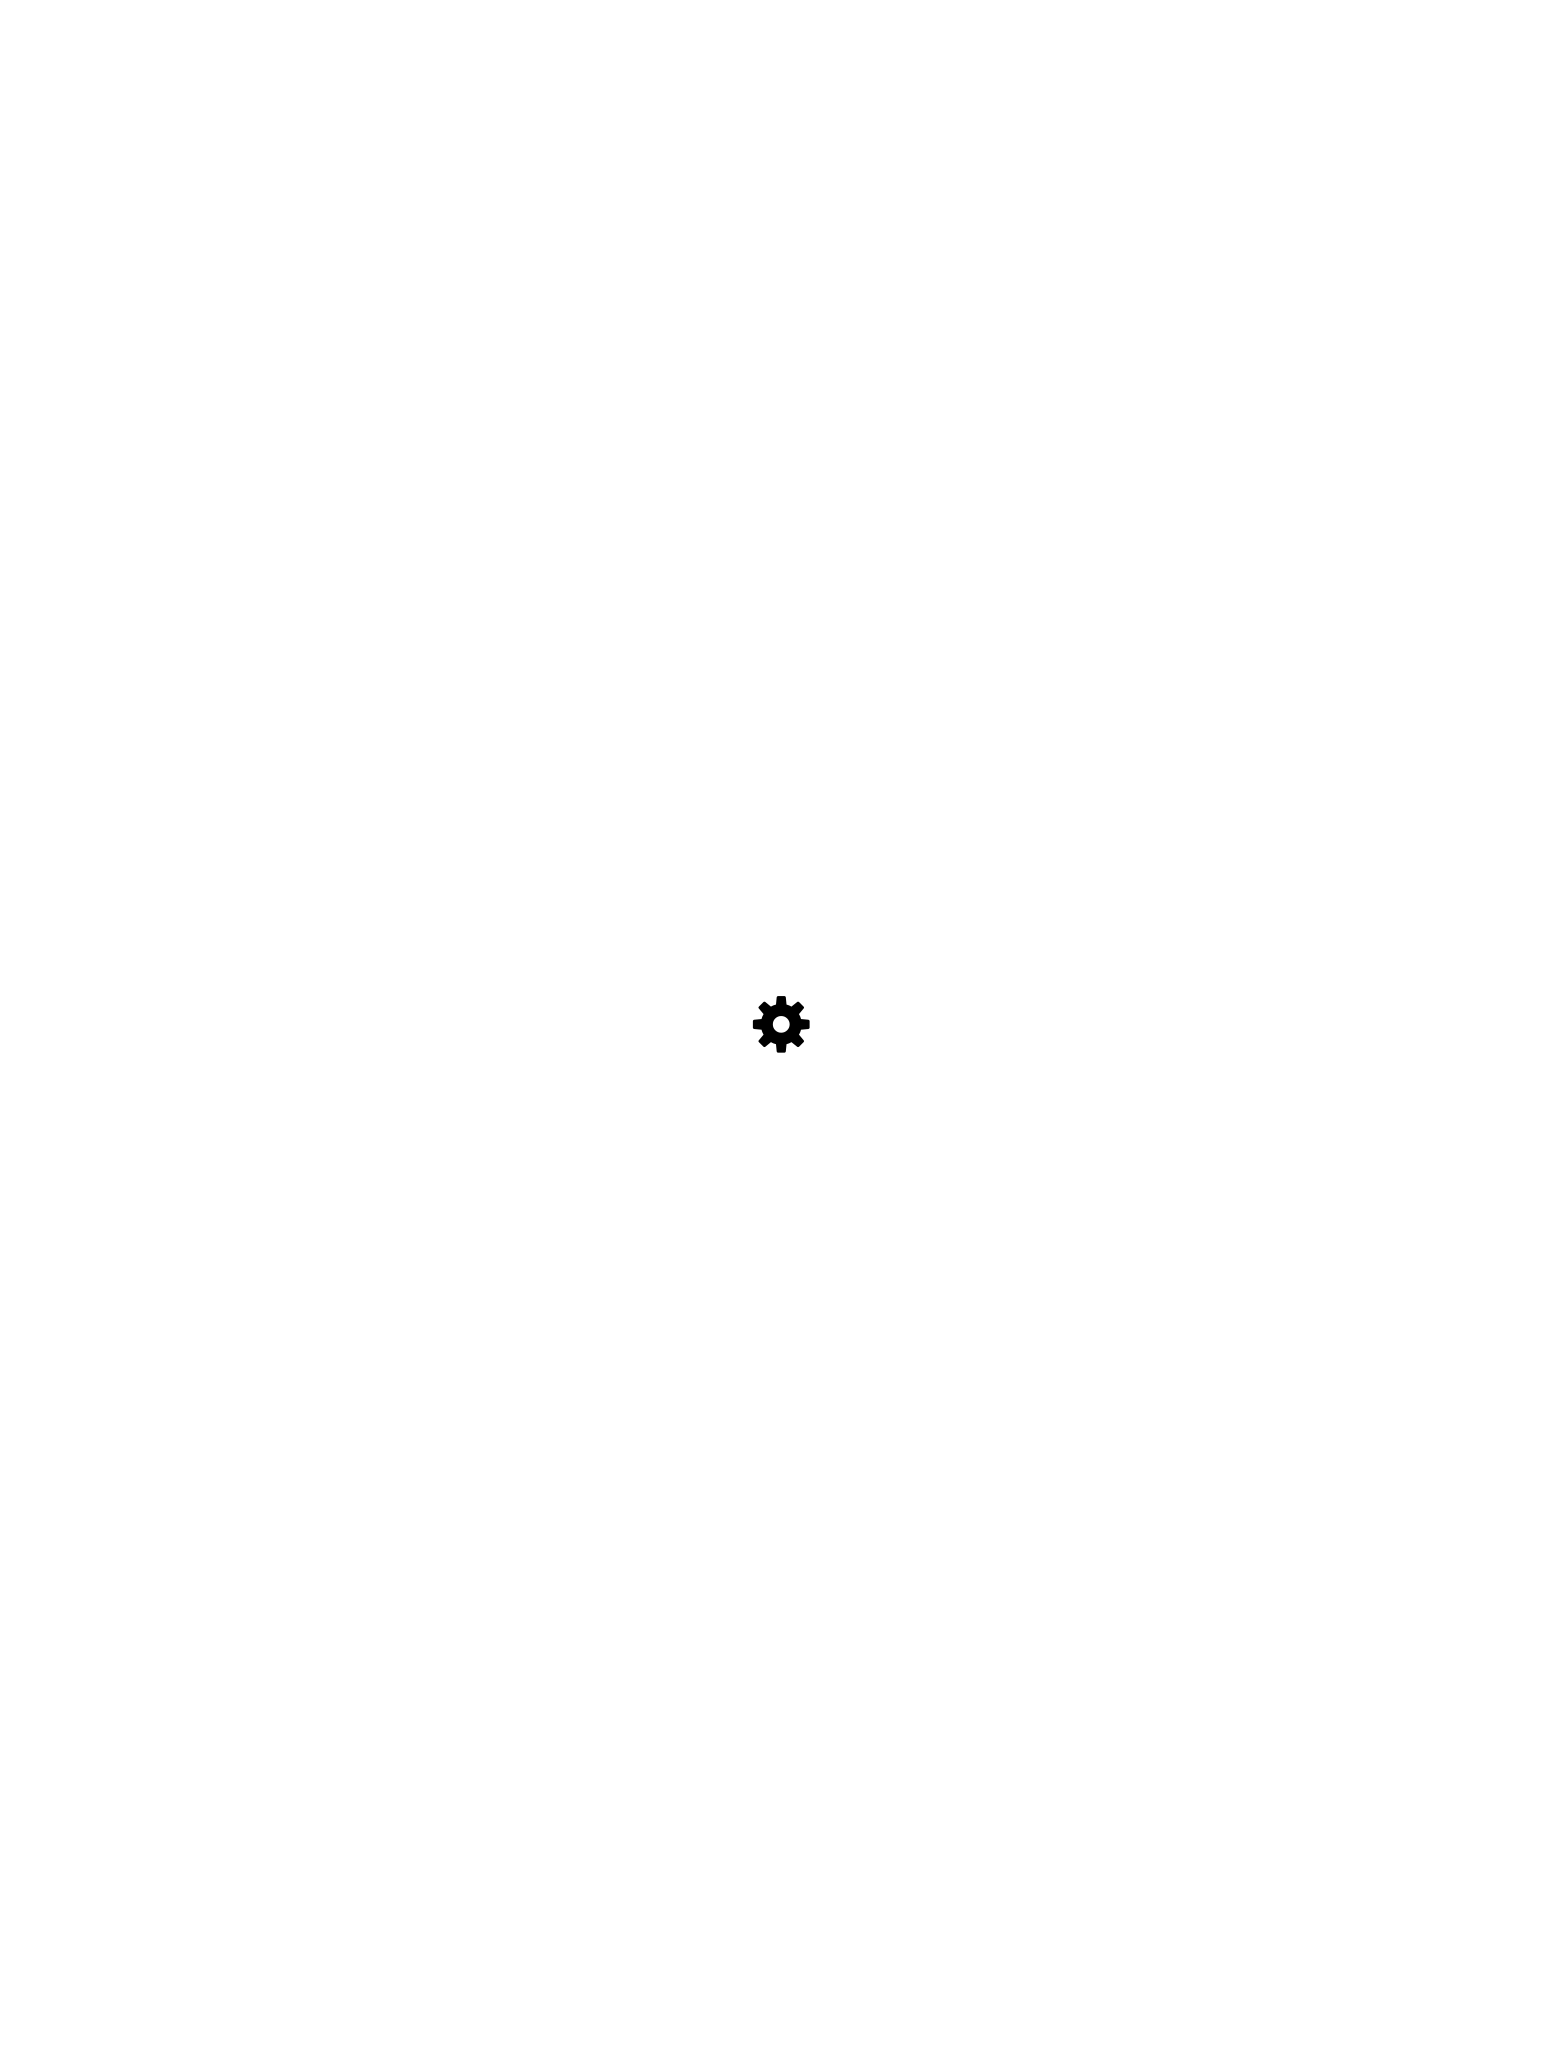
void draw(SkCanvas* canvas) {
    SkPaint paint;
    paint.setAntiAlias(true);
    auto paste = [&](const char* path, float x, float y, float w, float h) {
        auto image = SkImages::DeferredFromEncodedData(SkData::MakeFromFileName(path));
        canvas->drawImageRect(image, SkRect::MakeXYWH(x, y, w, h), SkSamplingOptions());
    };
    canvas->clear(SK_ColorWHITE);
    paste("pic1.png", 752, 996, 58, 57);
}
